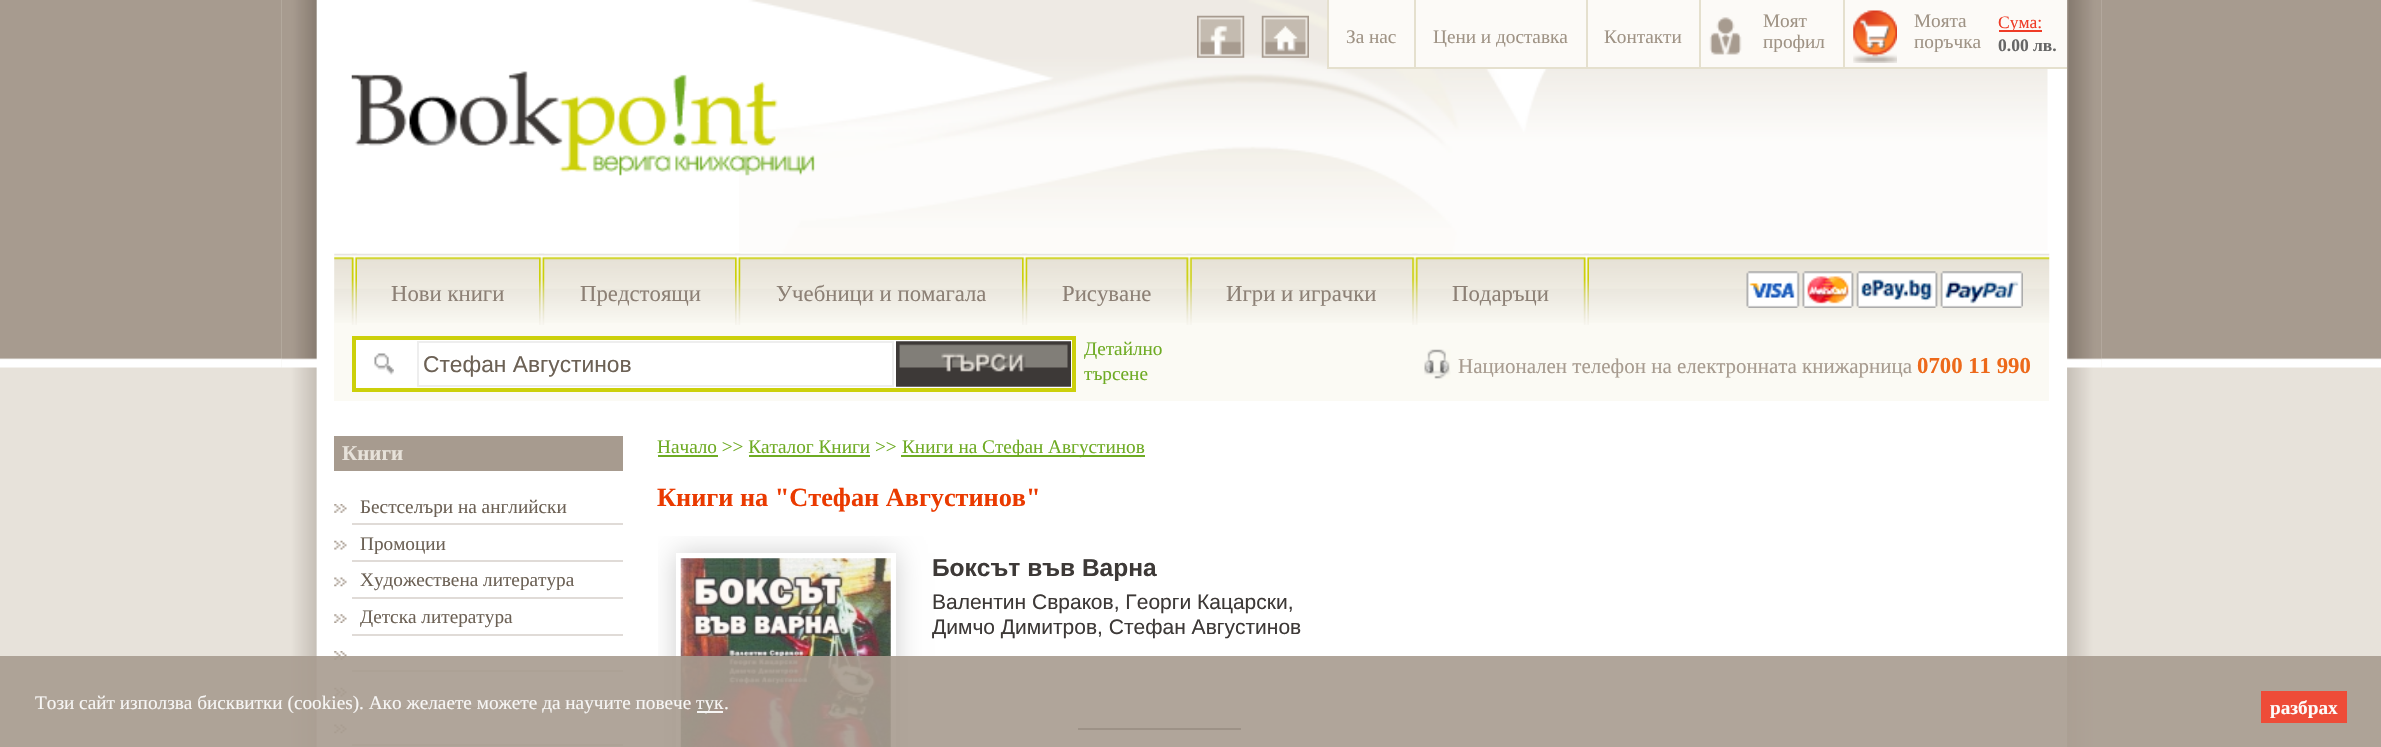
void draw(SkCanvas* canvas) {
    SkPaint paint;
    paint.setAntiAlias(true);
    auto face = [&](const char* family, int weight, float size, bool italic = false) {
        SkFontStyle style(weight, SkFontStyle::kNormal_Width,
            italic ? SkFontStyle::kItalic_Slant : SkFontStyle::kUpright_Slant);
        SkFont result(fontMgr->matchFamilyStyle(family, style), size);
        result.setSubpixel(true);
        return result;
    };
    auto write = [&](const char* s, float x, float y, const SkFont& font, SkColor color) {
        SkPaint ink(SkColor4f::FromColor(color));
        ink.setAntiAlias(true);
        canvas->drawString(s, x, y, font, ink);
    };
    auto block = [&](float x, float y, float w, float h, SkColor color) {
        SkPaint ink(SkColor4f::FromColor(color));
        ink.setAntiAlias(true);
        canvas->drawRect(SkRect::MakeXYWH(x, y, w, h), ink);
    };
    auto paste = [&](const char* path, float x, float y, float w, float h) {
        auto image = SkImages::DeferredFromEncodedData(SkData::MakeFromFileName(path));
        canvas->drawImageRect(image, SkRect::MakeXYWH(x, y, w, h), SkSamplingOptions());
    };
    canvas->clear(SkColorSetRGB(231, 226, 218));
    paste("pic1.png", 0, 0, 2381, 368);
    paste("pic2.png", 281, 0, 1821, 747);
    paste("pic3.png", 281, 0, 1821, 368);
    block(317, 0, 1750, 747, SK_ColorWHITE);
    paste("pic4.png", 739, 0, 1309, 253);
    paste("pic5.png", 1197, 15, 48, 43);
    paste("pic6.png", 1261, 15, 48, 43);
    block(1329, 0, 85, 67, SkColorSetRGB(252, 250, 247));
    block(1327, 67, 740, 2, SkColorSetRGB(229, 224, 206));
    block(1327, 0, 2, 68, SkColorSetRGB(229, 224, 206));
    auto kFont1 = face("Liberation Serif", 400, 19.25f);
    write("За нас", 1346, 43, kFont1, SkColorSetRGB(159, 147, 133));
    block(1416, 0, 170, 67, SkColorSetRGB(252, 250, 247));
    block(1414, 0, 2, 68, SkColorSetRGB(229, 224, 206));
    write("Цени и доставка", 1433, 43, kFont1, SkColorSetRGB(159, 147, 133));
    block(1588, 0, 111, 67, SkColorSetRGB(252, 250, 247));
    block(1586, 0, 2, 68, SkColorSetRGB(229, 224, 206));
    write("Контакти", 1604, 43, kFont1, SkColorSetRGB(159, 147, 133));
    block(1701, 0, 142, 67, SkColorSetRGB(252, 250, 247));
    block(1699, 0, 2, 68, SkColorSetRGB(229, 224, 206));
    paste("pic7.png", 1709, 17, 33, 38);
    write("Моят", 1763, 27, kFont1, SkColorSetRGB(159, 147, 133));
    write("профил", 1763, 48, kFont1, SkColorSetRGB(159, 147, 133));
    block(1845, 0, 222, 67, SkColorSetRGB(252, 250, 247));
    block(1843, 0, 2, 68, SkColorSetRGB(229, 224, 206));
    paste("pic8.png", 1853, 10, 44, 53);
    write("Моята", 1914, 27, kFont1, SkColorSetRGB(159, 147, 133));
    write("поръчка", 1914, 48, kFont1, SkColorSetRGB(159, 147, 133));
    block(1999, 30, 43, 2, SkColorSetRGB(239, 59, 38));
    auto kFont2 = face("Liberation Serif", 400, 17.5f);
    write("Сума:", 1998, 28, kFont2, SkColorSetRGB(239, 59, 38));
    auto kFont3 = face("Liberation Serif", 700, 17.5f);
    write("0.00 лв.", 1998, 51, kFont3, SkColorSetRGB(102, 102, 102));
    paste("pic9.png", 351, 71, 464, 105);
    block(334, 254, 1715, 147, SkColorSetRGB(251, 250, 244));
    paste("pic10.png", 334, 253, 1716, 70);
    paste("pic11.png", 351, 253, 6, 72);
    auto kFont4 = face("Liberation Serif", 400, 22.75f);
    write("Нови книги", 391, 301, kFont4, SkColorSetRGB(140, 128, 117));
    paste("pic12.png", 539, 253, 6, 72);
    write("Предстоящи", 580, 301, kFont4, SkColorSetRGB(140, 128, 117));
    paste("pic12.png", 735, 253, 6, 72);
    write("Учебници и помагала", 776, 301, kFont4, SkColorSetRGB(140, 128, 117));
    paste("pic12.png", 1022, 253, 6, 72);
    write("Рисуване", 1062, 301, kFont4, SkColorSetRGB(140, 128, 117));
    paste("pic13.png", 1186, 253, 6, 72);
    write("Игри и играчки", 1226, 301, kFont4, SkColorSetRGB(140, 128, 117));
    paste("pic14.png", 1412, 253, 6, 72);
    write("Подаръци", 1452, 301, kFont4, SkColorSetRGB(140, 128, 117));
    paste("pic11.png", 1583, 253, 6, 72);
    paste("pic15.png", 1746, 271, 277, 37);
    paint.setColor(SK_ColorWHITE);
    canvas->drawRect(SkRect::MakeXYWH(354, 338, 720, 52), paint);
    paint.setStyle(SkPaint::kStroke_Style);
    paint.setStrokeWidth(4);
    paint.setColor(SkColorSetRGB(204, 208, 10));
    canvas->drawRect(SkRect::MakeXYWH(354, 338, 720, 52), paint);
    paste("pic16.png", 374, 353, 20, 22);
    paint.setStrokeWidth(2);
    paint.setColor(SkColorSetRGB(238, 238, 238));
    canvas->drawRect(SkRect::MakeXYWH(418, 342, 475, 44), paint);
    canvas->save();
    canvas->clipRect(SkRect::MakeXYWH(424, 343, 463, 42));
    auto kFont5 = face("Liberation Sans", 400, 22.75f);
    write("Стефан Августинов", 423, 372, kFont5, SkColorSetRGB(108, 97, 85));
    canvas->restore();
    paste("pic17.png", 896, 341, 175, 46);
    write("Детайлно", 1084, 355, kFont1, SkColorSetRGB(110, 171, 35));
    write("търсене", 1084, 380, kFont1, SkColorSetRGB(110, 171, 35));
    paste("pic18.png", 1424, 349, 27, 30);
    auto kFont6 = face("Liberation Serif", 400, 21);
    write("Национален телефон на електронната книжарница", 1458, 373, kFont6, SkColorSetRGB(167, 155, 143));
    auto kFont7 = face("Liberation Serif", 700, 22.75f);
    write("0700 11 990", 1917, 373, kFont7, SkColorSetRGB(237, 105, 26));
    block(334, 436, 289, 35, SkColorSetRGB(167, 155, 143));
    auto kFont8 = face("Liberation Serif", 700, 21);
    write("Книги", 342, 460, kFont8, SkColorSetRGB(231, 226, 218));
    paste("pic19.png", 334, 504, 13, 9);
    block(352, 523, 271, 2, SkColorSetRGB(224, 219, 215));
    write("Бестселъри на английски", 360, 513, kFont1, SkColorSetRGB(108, 97, 85));
    paste("pic20.png", 334, 540, 13, 10);
    block(352, 560, 271, 2, SkColorSetRGB(224, 219, 215));
    write("Промоции", 360, 550, kFont1, SkColorSetRGB(108, 97, 85));
    paste("pic21.png", 334, 577, 13, 10);
    block(352, 597, 271, 2, SkColorSetRGB(224, 219, 215));
    write("Художествена литература", 360, 586, kFont1, SkColorSetRGB(108, 97, 85));
    paste("pic22.png", 334, 614, 13, 9);
    block(352, 634, 271, 2, SkColorSetRGB(224, 219, 215));
    write("Детска литература", 360, 623, kFont1, SkColorSetRGB(108, 97, 85));
    paste("pic19.png", 334, 651, 13, 9);
    block(352, 670, 271, 2, SkColorSetRGB(224, 219, 215));
    paste("pic20.png", 334, 687, 13, 10);
    block(352, 707, 271, 2, SkColorSetRGB(224, 219, 215));
    paste("pic21.png", 334, 724, 13, 10);
    block(352, 744, 271, 2, SkColorSetRGB(224, 219, 215));
    write("Начало >> Каталог Книги >>", 657, 453, kFont1, SkColorSetRGB(110, 171, 35));
    block(658, 455, 60, 2, SkColorSetRGB(110, 171, 35));
    block(901, 455, 244, 2, SkColorSetRGB(110, 171, 35));
    write("Книги на Стефан Августинов", 902, 453, kFont1, SkColorSetRGB(110, 171, 35));
    block(749, 455, 121, 2, SkColorSetRGB(110, 171, 35));
    auto kFont9 = face("Liberation Serif", 700, 26.25f);
    write("Книги на \"Стефан Августинов\"", 657, 506, kFont9, SkColorSetRGB(234, 58, 0));
    canvas->save();
    canvas->clipRect(SkRect::MakeXYWH(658, 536, 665, 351));
    canvas->clipPath(SkPathBuilder(SkPathFillType::kEvenOdd).moveTo(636, 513).lineTo(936, 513).lineTo(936, 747).lineTo(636, 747).close().moveTo(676, 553).lineTo(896, 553).lineTo(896, 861).lineTo(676, 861).close().detach(), true);
    paint.setStyle(SkPaint::kFill_Style);
    paint.setColor(SkColorSetRGB(206, 206, 206));
    paint.setMaskFilter(SkMaskFilter::MakeBlur(kNormal_SkBlurStyle, 13));
    canvas->drawRect(SkRect::MakeXYWH(676, 553, 220, 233), paint);
    paint.setMaskFilter(nullptr);
    canvas->restore();
    paste("pic23.png", 680, 558, 211, 189);
    auto kFont10 = face("Liberation Sans", 700, 24.5f);
    write("Боксът във Варна", 932, 576, kFont10, SkColorSetRGB(61, 57, 55));
    auto kFont11 = face("Liberation Sans", 400, 21);
    write("Валентин Свраков, Георги Кацарски,", 932, 609, kFont11, SkColorSetRGB(61, 57, 55));
    write("Димчо Димитров, Стефан Августинов", 932, 634, kFont11, SkColorSetRGB(61, 57, 55));
    block(1078, 728, 163, 2, SkColorSetRGB(61, 57, 55));
    block(0, 656, 2381, 91, SkColorSetARGB(230, 167, 155, 143));
    write("Този сайт използва бисквитки (cookies). Ако желаете можете да научите повече", 35, 709, kFont1, SkColorSetRGB(247, 246, 245));
    block(697, 711, 26, 2, SkColorSetARGB(230, 255, 255, 255));
    write("тук", 696, 709, kFont1, SkColorSetRGB(247, 246, 245));
    write(".", 724, 709, kFont1, SkColorSetRGB(247, 246, 245));
    block(2261, 691, 86, 32, SkColorSetRGB(238, 76, 56));
    auto kFont12 = face("Liberation Serif", 700, 19.25f);
    write("разбрах", 2270, 714, kFont12, SkColorSetRGB(253, 252, 251));
}
